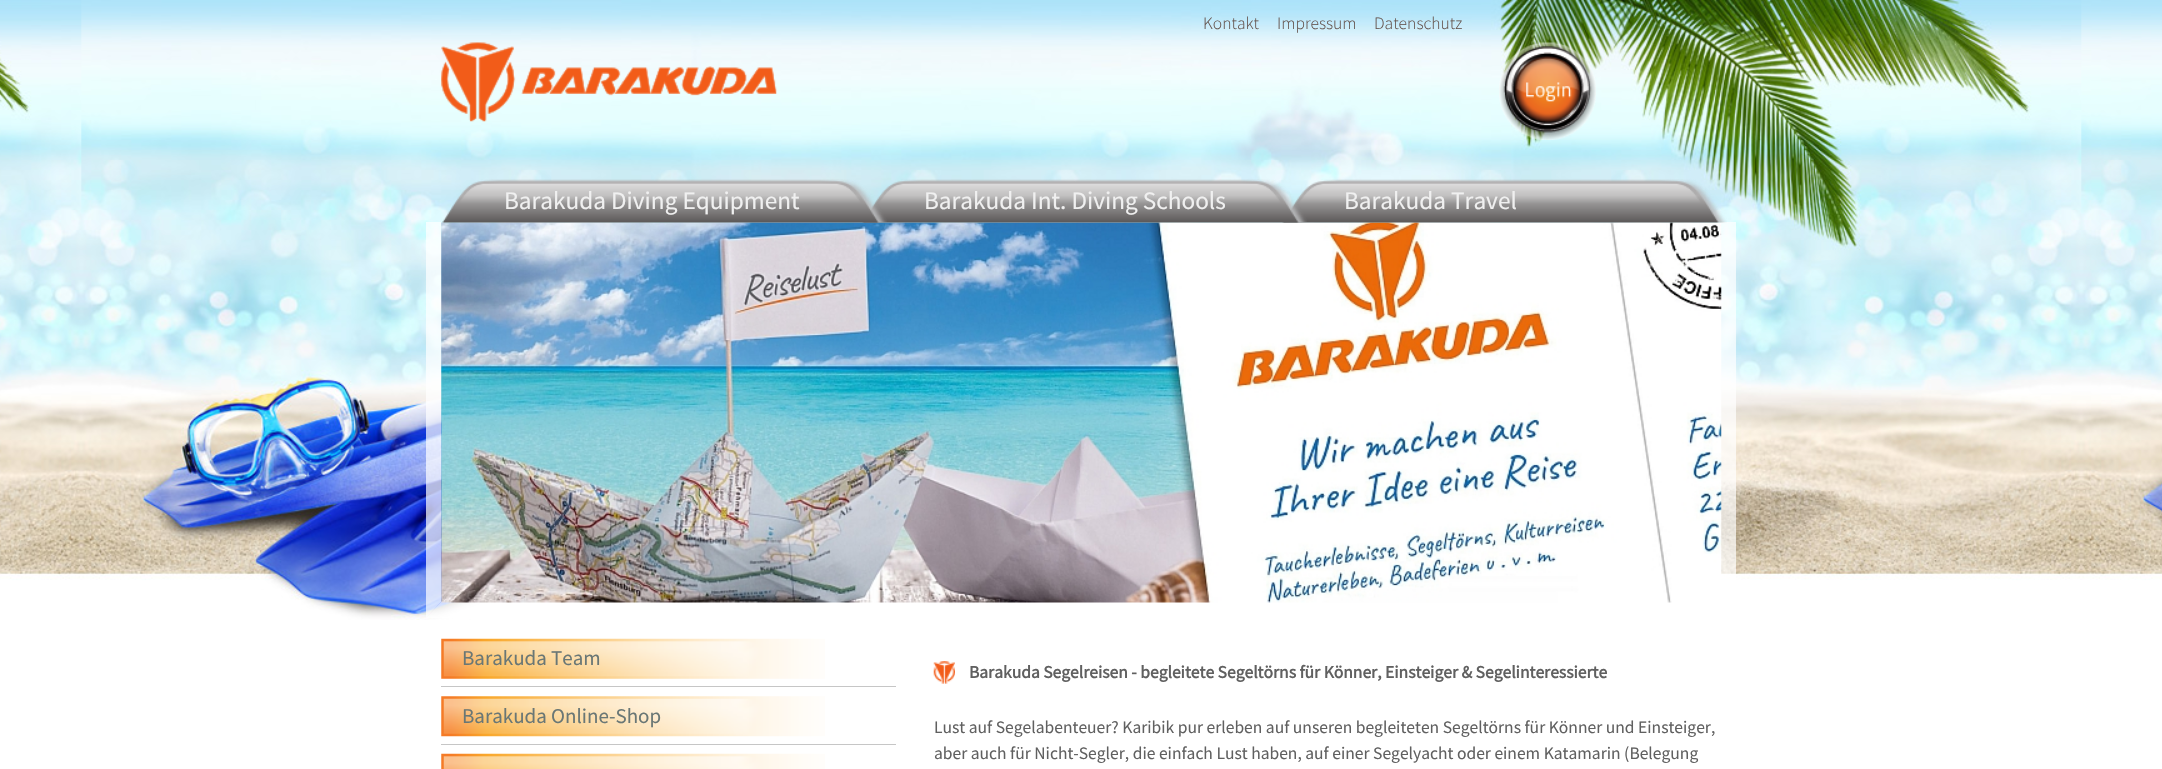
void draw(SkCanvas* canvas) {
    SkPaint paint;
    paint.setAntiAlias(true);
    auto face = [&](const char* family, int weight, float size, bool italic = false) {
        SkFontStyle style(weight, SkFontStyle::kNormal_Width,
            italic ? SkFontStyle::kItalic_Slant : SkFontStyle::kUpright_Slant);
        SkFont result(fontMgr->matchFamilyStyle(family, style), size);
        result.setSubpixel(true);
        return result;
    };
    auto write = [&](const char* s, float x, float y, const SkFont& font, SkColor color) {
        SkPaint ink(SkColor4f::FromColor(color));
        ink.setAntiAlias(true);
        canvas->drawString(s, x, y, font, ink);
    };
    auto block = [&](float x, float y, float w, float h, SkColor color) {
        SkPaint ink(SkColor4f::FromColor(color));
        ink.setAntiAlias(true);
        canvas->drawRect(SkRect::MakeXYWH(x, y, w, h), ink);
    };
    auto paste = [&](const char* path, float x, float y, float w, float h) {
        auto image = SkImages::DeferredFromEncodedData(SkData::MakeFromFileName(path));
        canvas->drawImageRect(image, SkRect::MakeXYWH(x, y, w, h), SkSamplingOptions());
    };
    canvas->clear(SK_ColorWHITE);
    paste("pic1.png", 0, 0, 2162, 620);
    auto kFont1 = face("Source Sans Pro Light", 300, 17.5f);
    write("Kontakt", 1203, 29, kFont1, SkColorSetRGB(100, 83, 77));
    write("Impressum", 1277, 29, kFont1, SkColorSetRGB(100, 83, 77));
    write("Datenschutz", 1374, 29, kFont1, SkColorSetRGB(100, 83, 77));
    paste("pic2.png", 441, 42, 336, 80);
    paste("pic3.png", 1499, 42, 97, 98);
    paint.setColor(SkColorSetARGB(179, 255, 255, 255));
    canvas->drawPath(SkPathBuilder().moveTo(1736, 222).lineTo(1736, 618).lineTo(1721, 602).lineTo(1721, 222).close().detach(), paint);
    canvas->drawPath(SkPathBuilder().moveTo(1736, 618).lineTo(426, 618).lineTo(441, 602).lineTo(1721, 602).close().detach(), paint);
    paste("pic7.png", 441, 222, 1281, 381);
    paste("pic6.png", 1282, 179, 445, 44);
    paste("pic5.png", 862, 179, 445, 44);
    paste("pic4.png", 442, 179, 445, 44);
    auto kFont2 = face("Source Sans Pro", 400, 25.25f);
    write("Barakuda Diving Equipment", 504, 209, kFont2, SkColorSetRGB(240, 240, 240));
    write("Barakuda Int. Diving Schools", 924, 209, kFont2, SkColorSetRGB(240, 240, 240));
    write("Barakuda Travel", 1344, 209, kFont2, SkColorSetRGB(240, 240, 240));
    canvas->drawPath(SkPathBuilder().moveTo(426, 618).lineTo(426, 222).lineTo(441, 222).lineTo(441, 602).close().detach(), paint);
    block(441, 686, 455, 1, SkColorSetRGB(198, 198, 198));
    paste("pic8.png", 441, 638, 384, 41);
    auto kFont3 = face("Source Sans Pro", 400, 21);
    write("Barakuda Team", 462, 665, kFont3, SkColorSetRGB(106, 119, 117));
    block(441, 744, 455, 1, SkColorSetRGB(198, 198, 198));
    paste("pic9.png", 441, 696, 384, 41);
    write("Barakuda Online-Shop", 462, 723, kFont3, SkColorSetRGB(106, 119, 117));
    paste("pic10.png", 441, 753, 384, 16);
    paste("pic11.png", 933, 661, 22, 23);
    auto kFont4 = face("Source Sans Pro", 700, 17.5f);
    write("Barakuda Segelreisen - begleitete Segeltörns für Könner, Einsteiger & Segelinteressierte", 969, 678, kFont4, SkColorSetRGB(96, 96, 96));
    auto kFont5 = face("Source Sans Pro", 400, 17.5f);
    write("Lust auf Segelabenteuer? Karibik pur erleben auf unseren begleiteten Segeltörns für Könner und Einsteiger,", 934, 733, kFont5, SkColorSetRGB(96, 96, 96));
    write("aber auch für Nicht-Segler, die einfach Lust haben, auf einer Segelyacht oder einem Katamarin (Belegung", 934, 759, kFont5, SkColorSetRGB(96, 96, 96));
}
